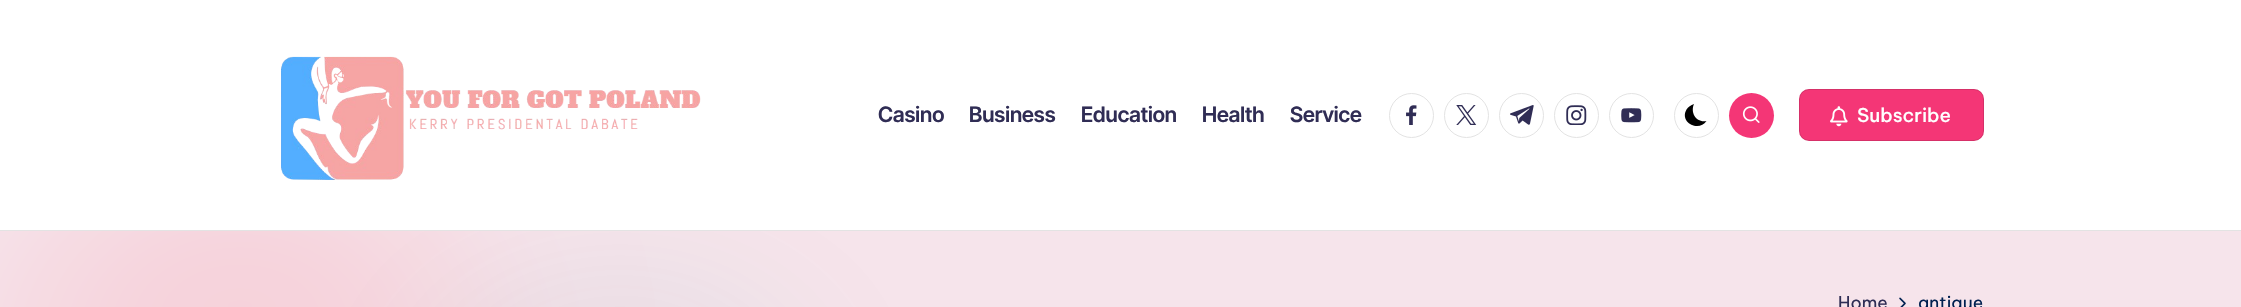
void draw(SkCanvas* canvas) {
    SkPaint paint;
    paint.setAntiAlias(true);
    auto face = [&](const char* family, int weight, float size, bool italic = false) {
        SkFontStyle style(weight, SkFontStyle::kNormal_Width,
            italic ? SkFontStyle::kItalic_Slant : SkFontStyle::kUpright_Slant);
        SkFont result(fontMgr->matchFamilyStyle(family, style), size);
        result.setSubpixel(true);
        return result;
    };
    auto write = [&](const char* s, float x, float y, const SkFont& font, SkColor color) {
        SkPaint ink(SkColor4f::FromColor(color));
        ink.setAntiAlias(true);
        canvas->drawString(s, x, y, font, ink);
    };
    auto block = [&](float x, float y, float w, float h, SkColor color) {
        SkPaint ink(SkColor4f::FromColor(color));
        ink.setAntiAlias(true);
        canvas->drawRect(SkRect::MakeXYWH(x, y, w, h), ink);
    };
    auto card = [&](float x, float y, float w, float h, float radius, SkColor color) {
        SkPaint ink(SkColor4f::FromColor(color));
        ink.setAntiAlias(true);
        canvas->drawRoundRect(SkRect::MakeXYWH(x, y, w, h), radius, radius, ink);
    };
    auto paste = [&](const char* path, float x, float y, float w, float h) {
        auto image = SkImages::DeferredFromEncodedData(SkData::MakeFromFileName(path));
        canvas->drawImageRect(image, SkRect::MakeXYWH(x, y, w, h), SkSamplingOptions());
    };
    canvas->clear(SkColorSetRGB(247, 248, 249));
    paint.setColor(SkColorSetRGB(247, 227, 230));
    paint.setMaskFilter(SkMaskFilter::MakeBlur(kNormal_SkBlurStyle, 80));
    canvas->drawRoundRect(SkRect::MakeXYWH(0, 163, 480, 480), 240, 240, paint);
    paint.setMaskFilter(nullptr);
    paint.setColor(SkColorSetARGB(26, 4, 134, 139));
    paint.setMaskFilter(SkMaskFilter::MakeBlur(kNormal_SkBlurStyle, 80));
    canvas->drawRoundRect(SkRect::MakeXYWH(380, 300, 480, 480), 240, 240, paint);
    paint.setMaskFilter(nullptr);
    block(0, 0, 2241, 230, SK_ColorWHITE);
    block(0, 230, 2241, 1, SkColorSetRGB(227, 227, 227));
    paste("pic1.png", 281, 56, 420, 124);
    auto kFont1 = face("Inter Tight", 600, 21.25f);
    write("Casino", 878, 122, kFont1, SkColorSetRGB(48, 45, 85));
    write("Business", 969, 122, kFont1, SkColorSetRGB(48, 45, 85));
    write("Education", 1081, 122, kFont1, SkColorSetRGB(48, 45, 85));
    write("Health", 1202, 122, kFont1, SkColorSetRGB(48, 45, 85));
    write("Service", 1290, 122, kFont1, SkColorSetRGB(48, 45, 85));
    paint.setStyle(SkPaint::kStroke_Style);
    paint.setStrokeWidth(1);
    paint.setColor(SkColorSetRGB(227, 227, 227));
    canvas->drawCircle(1411.5f, 115.5f, 22, paint);
    paste("pic2.png", 1406, 105, 11, 20);
    canvas->drawCircle(1466.5f, 115.5f, 22, paint);
    paste("pic3.png", 1456, 105, 21, 20);
    canvas->drawCircle(1521.5f, 115.5f, 22, paint);
    paste("pic4.png", 1510, 105, 24, 20);
    canvas->drawCircle(1576.5f, 115.5f, 22, paint);
    paste("pic5.png", 1566, 105, 21, 20);
    canvas->drawCircle(1631.5f, 115.5f, 22, paint);
    paste("pic6.png", 1621, 108, 21, 15);
    canvas->drawCircle(1696.5f, 115.5f, 22, paint);
    paint.setStyle(SkPaint::kFill_Style);
    paint.setColor(SK_ColorBLACK);
    canvas->drawPath(SkPathBuilder().moveTo(1706.5f, 121).cubicTo(1696.5f, 123, 1690, 113, 1694, 104).cubicTo(1691, 105, 1688, 107, 1686.5f, 109.5f).cubicTo(1679, 122.5f, 1699, 132.5f, 1706.5f, 121).close().detach(), paint);
    paint.setColor(SkColorSetRGB(244, 54, 118));
    canvas->drawCircle(1751.5f, 115.5f, 22.5f, paint);
    paste("pic7.png", 1742, 106, 18, 17);
    card(1799, 89, 185, 52, 10, SkColorSetRGB(244, 54, 118));
    paint.setStyle(SkPaint::kStroke_Style);
    paint.setColor(SkColorSetARGB(31, 0, 0, 0));
    canvas->drawRoundRect(SkRect::MakeXYWH(1799.5f, 89.5f, 184, 51), 9.5f, 9.5f, paint);
    paste("pic8.png", 1830, 106, 18, 21);
    auto kFont2 = face("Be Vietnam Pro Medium", 500, 19);
    write("Subscribe", 1857, 122, kFont2, SK_ColorWHITE);
    block(0, 231, 2241, 76, SkColorSetARGB(26, 244, 54, 118));
    auto kFont3 = face("Be Vietnam Pro", 400, 17.5f);
    write("Home", 1838, 309, kFont3, SkColorSetRGB(48, 45, 85));
    paste("pic9.png", 1899, 297, 7, 10);
    write("antique", 1918, 309, kFont3, SkColorSetRGB(0, 32, 80));
}
